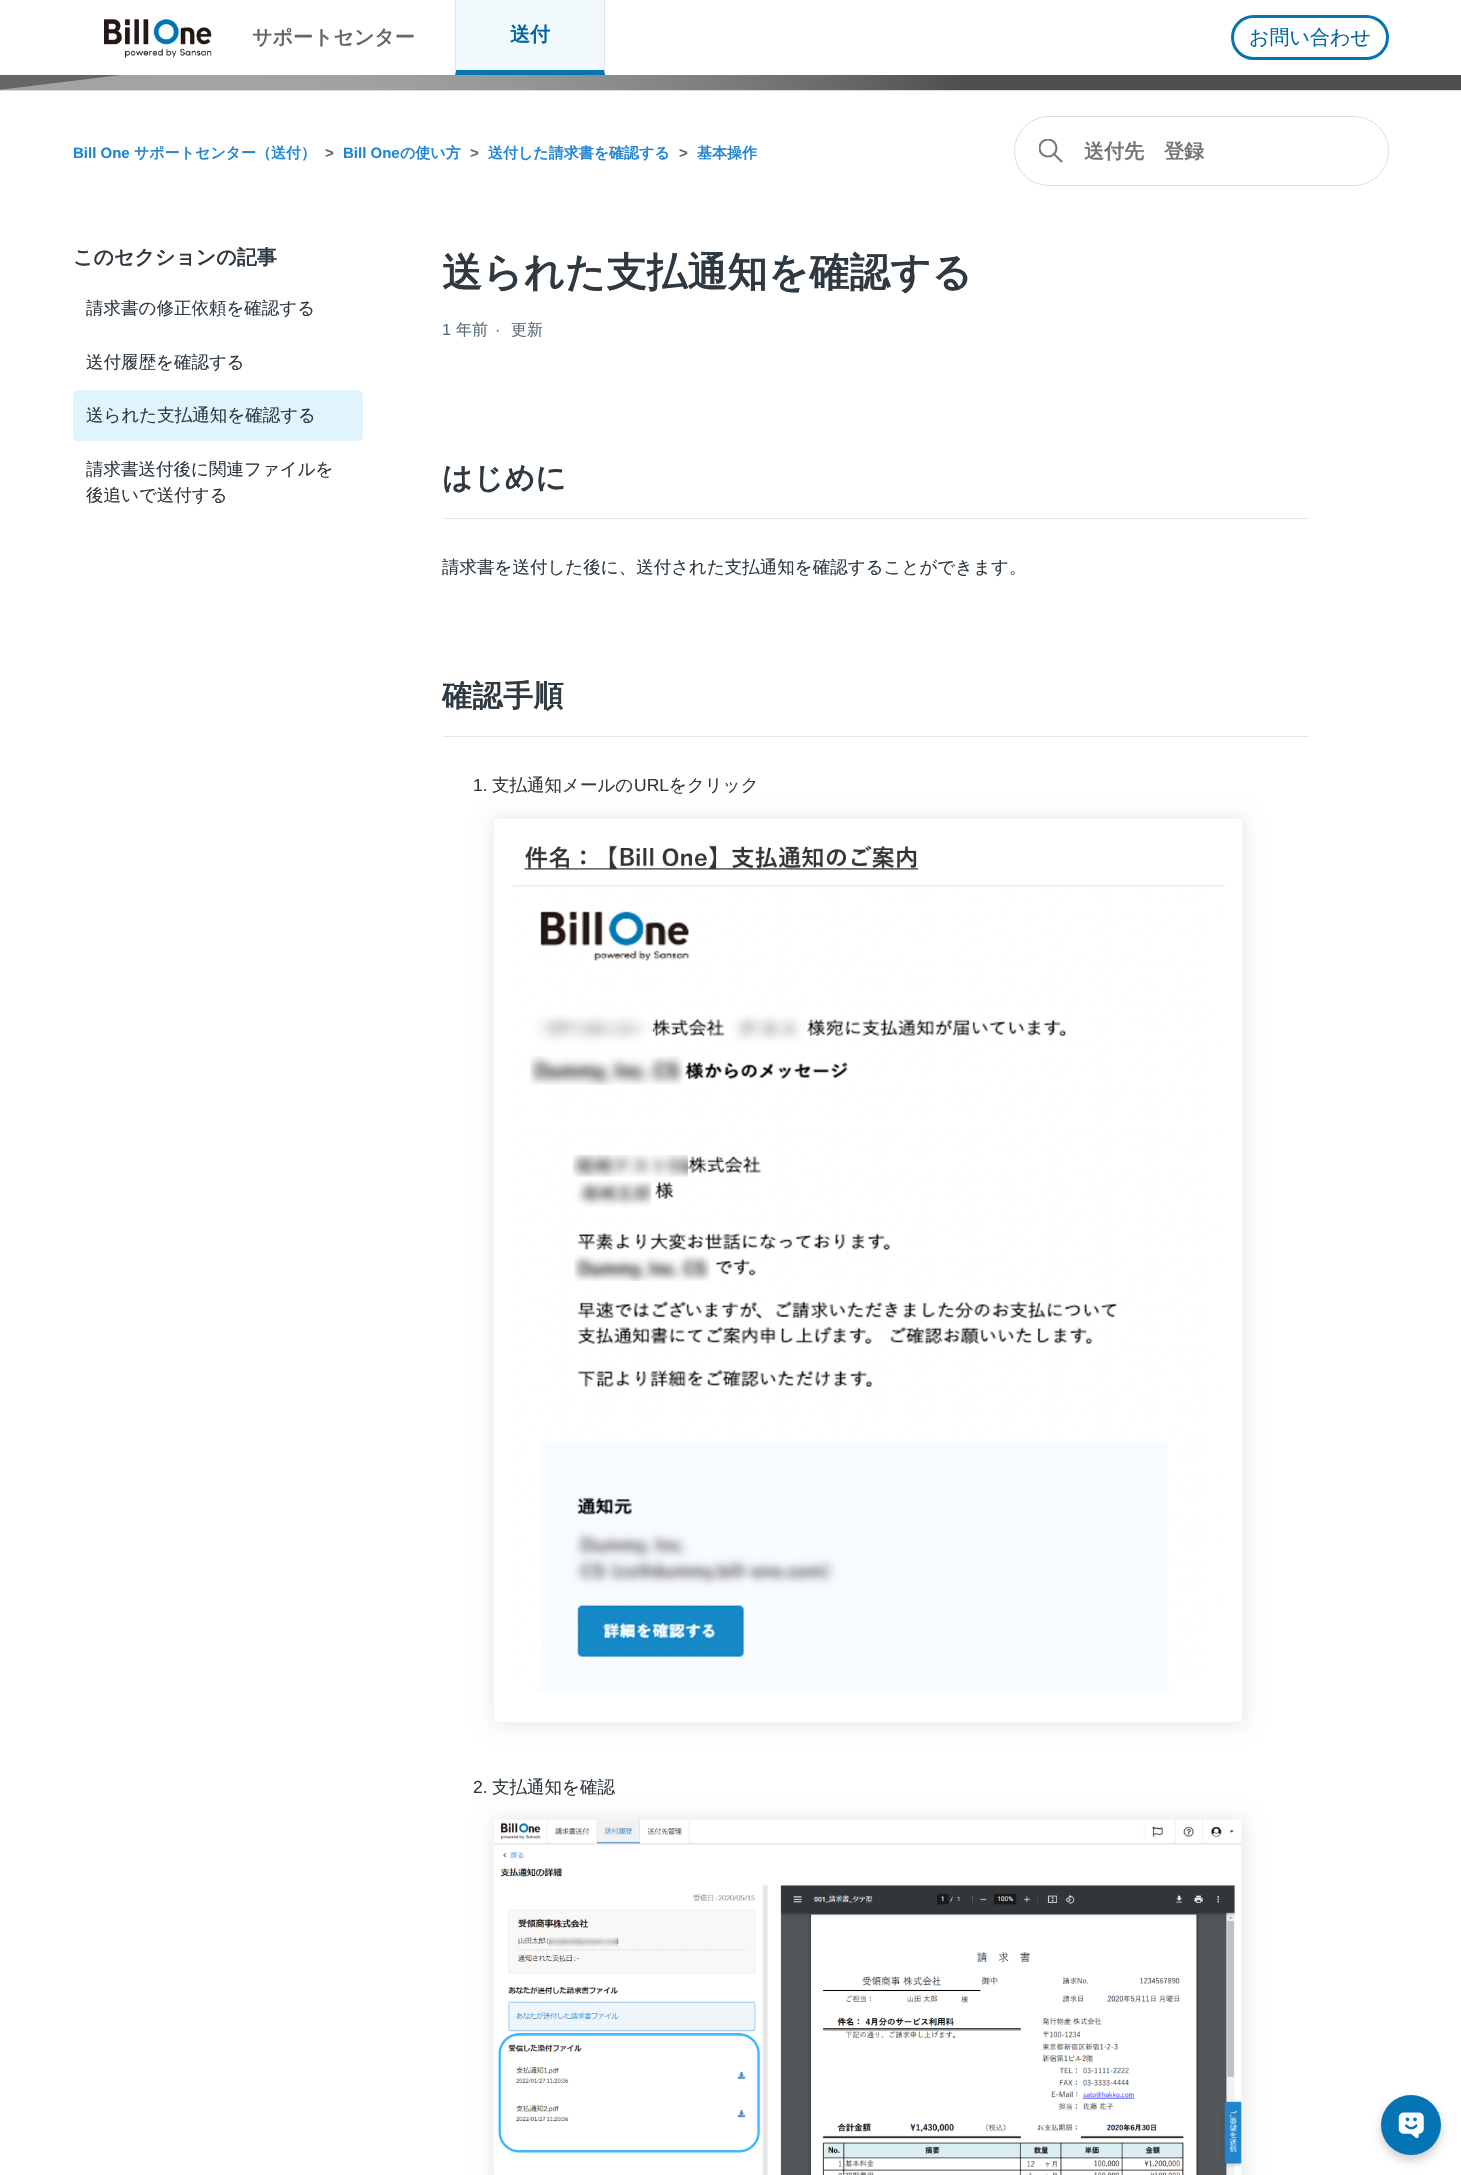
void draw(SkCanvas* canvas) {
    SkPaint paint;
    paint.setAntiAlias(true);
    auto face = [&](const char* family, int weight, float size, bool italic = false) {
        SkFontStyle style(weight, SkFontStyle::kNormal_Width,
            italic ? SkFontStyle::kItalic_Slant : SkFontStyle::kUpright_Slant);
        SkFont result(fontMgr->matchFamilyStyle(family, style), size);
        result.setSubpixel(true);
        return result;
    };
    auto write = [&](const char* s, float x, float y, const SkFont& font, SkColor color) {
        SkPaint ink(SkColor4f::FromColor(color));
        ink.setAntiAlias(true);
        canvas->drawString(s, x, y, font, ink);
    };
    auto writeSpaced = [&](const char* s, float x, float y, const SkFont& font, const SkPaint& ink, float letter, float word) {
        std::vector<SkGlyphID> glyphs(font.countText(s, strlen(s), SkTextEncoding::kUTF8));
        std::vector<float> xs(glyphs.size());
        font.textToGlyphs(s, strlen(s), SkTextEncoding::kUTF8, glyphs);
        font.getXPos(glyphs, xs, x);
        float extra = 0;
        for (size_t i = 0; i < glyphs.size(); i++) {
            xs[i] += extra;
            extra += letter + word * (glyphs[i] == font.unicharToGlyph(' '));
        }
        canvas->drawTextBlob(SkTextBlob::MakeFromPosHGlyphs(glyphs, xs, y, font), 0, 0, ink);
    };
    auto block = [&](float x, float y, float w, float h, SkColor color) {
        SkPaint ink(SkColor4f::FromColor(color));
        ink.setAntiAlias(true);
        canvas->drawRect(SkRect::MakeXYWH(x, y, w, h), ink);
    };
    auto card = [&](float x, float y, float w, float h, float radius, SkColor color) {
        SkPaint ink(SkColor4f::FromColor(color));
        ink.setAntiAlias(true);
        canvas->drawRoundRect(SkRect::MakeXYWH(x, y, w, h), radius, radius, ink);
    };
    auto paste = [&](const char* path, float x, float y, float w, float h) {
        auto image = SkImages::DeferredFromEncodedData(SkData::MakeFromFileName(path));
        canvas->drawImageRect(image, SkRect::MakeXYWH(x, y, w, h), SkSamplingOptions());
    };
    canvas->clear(SK_ColorWHITE);
    paste("pic1.png", 0, 75, 1461, 15);
    paste("pic2.png", 104, 19, 108, 39);
    auto kFont1 = face("WenQuanYi Zen Hei", 700, 20);
    write("サポートセンター", 252, 44, kFont1, SkColorSetRGB(102, 102, 105));
    block(455, 0, 150, 75, SkColorSetRGB(241, 249, 253));
    paint.setColor(SkColorSetRGB(228, 228, 232));
    canvas->drawPath(SkPathBuilder().moveTo(605, 0).lineTo(605, 75).lineTo(604, 70).lineTo(604, 0).close().detach(), paint);
    paint.setColor(SkColorSetRGB(4, 116, 181));
    canvas->drawPath(SkPathBuilder().moveTo(605, 75).lineTo(455, 75).lineTo(456, 70).lineTo(604, 70).close().detach(), paint);
    paint.setColor(SkColorSetRGB(228, 228, 232));
    canvas->drawPath(SkPathBuilder().moveTo(455, 75).lineTo(455, 0).lineTo(456, 0).lineTo(456, 70).close().detach(), paint);
    write("送付", 510, 41, kFont1, SkColorSetRGB(0, 102, 156));
    paint.setStyle(SkPaint::kStroke_Style);
    paint.setStrokeWidth(3);
    paint.setColor(SkColorSetRGB(4, 116, 181));
    canvas->drawRoundRect(SkRect::MakeXYWH(1232.5f, 16.5f, 155, 42), 21, 21, paint);
    auto kFont2 = face("WenQuanYi Zen Hei", 500, 20);
    write("お問い合わせ", 1249, 44, kFont2, SkColorSetRGB(0, 102, 156));
    block(0, 90, 1461, 1, SkColorSetRGB(221, 221, 221));
    auto kFont3 = face("Liberation Sans", 700, 15);
    write("Bill One", 73, 158, kFont3, SkColorSetRGB(33, 133, 208));
    auto kFont4 = face("WenQuanYi Zen Hei", 700, 15);
    write("サポートセンター（送付）", 134, 158, kFont4, SkColorSetRGB(33, 133, 208));
    write(">", 325, 158, kFont3, SkColorSetRGB(90, 109, 124));
    write("Bill One", 343, 158, kFont3, SkColorSetRGB(33, 133, 208));
    write("の使い方", 400, 158, kFont4, SkColorSetRGB(33, 133, 208));
    write(">", 470, 158, kFont3, SkColorSetRGB(90, 109, 124));
    write("送付した請求書を確認する", 488, 158, kFont4, SkColorSetRGB(33, 133, 208));
    write(">", 679, 158, kFont3, SkColorSetRGB(90, 109, 124));
    write("基本操作", 697, 158, kFont4, SkColorSetRGB(33, 133, 208));
    paint.setStrokeWidth(1);
    paint.setColor(SkColorSetRGB(221, 221, 221));
    canvas->drawRoundRect(SkRect::MakeXYWH(1014.5f, 116.5f, 374, 69), 34.5f, 34.5f, paint);
    canvas->save();
    canvas->clipRect(SkRect::MakeXYWH(1039, 139, 25, 25));
    paint.setStrokeWidth(2.1f);
    paint.setColor(SkColorSetRGB(119, 119, 119));
    canvas->drawCircle(1048, 148, 8.5f, paint);
    canvas->restore();
    paint.setStrokeCap(SkPaint::kRound_Cap);
    canvas->drawPath(SkPathBuilder().moveTo(1061.5f, 161.5f).lineTo(1054.5f, 154.5f).detach(), paint);
    write("送付先　登録", 1084, 158, kFont1, SkColorSetRGB(117, 117, 117));
    write("このセクションの記事", 73, 264, kFont1, SkColorSetRGB(47, 57, 65));
    auto kFont5 = face("WenQuanYi Zen Hei", 500, 17.5f);
    write("請求書の修正依頼を確認する", 86, 314, kFont5, SkColorSetRGB(47, 57, 65));
    write("送付履歴を確認する", 86, 368, kFont5, SkColorSetRGB(47, 57, 65));
    card(73, 390, 290, 51, 5, SkColorSetRGB(225, 244, 253));
    write("送られた支払通知を確認する", 86, 421, kFont5, SkColorSetRGB(47, 57, 65));
    write("請求書送付後に関連ファイルを", 86, 475, kFont5, SkColorSetRGB(47, 57, 65));
    write("後追いで送付する", 86, 501, kFont5, SkColorSetRGB(47, 57, 65));
    auto kFont6 = face("WenQuanYi Zen Hei", 700, 40);
    paint.setStyle(SkPaint::kFill_Style);
    paint.setColor(SkColorSetRGB(47, 57, 65));
    writeSpaced("送られた支払通知を確認する", 442, 286, kFont6, paint, 0.4f, 0);
    auto kFont7 = face("Liberation Sans", 400, 16);
    write("1", 442, 335, kFont7, SkColorSetRGB(90, 109, 124));
    auto kFont8 = face("WenQuanYi Zen Hei", 500, 16);
    write("年前", 456, 335, kFont8, SkColorSetRGB(90, 109, 124));
    write("·", 495, 335, kFont7, SkColorSetRGB(90, 109, 124));
    write("更新", 511, 335, kFont8, SkColorSetRGB(90, 109, 124));
    block(443, 518, 866, 1, SkColorSetRGB(230, 230, 230));
    auto kFont9 = face("WenQuanYi Zen Hei", 700, 30);
    writeSpaced("はじめに", 442, 488, kFont9, paint, 0.5f, 0);
    write("請求書を送付した後に、送付された支払通知を確認することができます。", 442, 573, kFont5, SkColorSetRGB(47, 57, 65));
    block(443, 736, 866, 1, SkColorSetRGB(230, 230, 230));
    writeSpaced("確認手順", 442, 706, kFont9, paint, 0.5f, 0);
    auto kFont10 = face("Liberation Sans", 400, 17.5f);
    write("1.", 473, 791, kFont10, SkColorSetRGB(47, 57, 65));
    write("支払通知メールの", 492, 791, kFont5, SkColorSetRGB(47, 57, 65));
    write("URL", 634, 791, kFont10, SkColorSetRGB(47, 57, 65));
    write("をクリック", 669, 791, kFont5, SkColorSetRGB(47, 57, 65));
    canvas->save();
    canvas->clipPath(SkPathBuilder(SkPathFillType::kEvenOdd).moveTo(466, 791).lineTo(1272, 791).lineTo(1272, 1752).lineTo(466, 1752).close().moveTo(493, 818).lineTo(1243, 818).lineTo(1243, 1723).lineTo(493, 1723).close().detach(), true);
    paint.setColor(SkColorSetARGB(26, 0, 0, 0));
    paint.setMaskFilter(SkMaskFilter::MakeBlur(kNormal_SkBlurStyle, 9));
    canvas->drawRect(SkRect::MakeXYWH(494, 819, 750, 905), paint);
    paint.setMaskFilter(nullptr);
    canvas->restore();
    paint.setStyle(SkPaint::kStroke_Style);
    paint.setStrokeWidth(1);
    paint.setStrokeCap(SkPaint::kButt_Cap);
    paint.setColor(SkColorSetRGB(244, 244, 244));
    canvas->drawRect(SkRect::MakeXYWH(493.5f, 818.5f, 749, 904), paint);
    paste("pic3.png", 513, 845, 712, 847);
    write("2.", 473, 1793, kFont10, SkColorSetRGB(47, 57, 65));
    write("支払通知を確認", 492, 1793, kFont5, SkColorSetRGB(47, 57, 65));
    paint.setStyle(SkPaint::kFill_Style);
    paint.setColor(SkColorSetARGB(26, 0, 0, 0));
    paint.setMaskFilter(SkMaskFilter::MakeBlur(kNormal_SkBlurStyle, 9));
    canvas->drawRect(SkRect::MakeXYWH(494, 1820, 750, 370), paint);
    paint.setMaskFilter(nullptr);
    paint.setStyle(SkPaint::kStroke_Style);
    paint.setColor(SkColorSetRGB(244, 244, 244));
    canvas->drawRect(SkRect::MakeXYWH(493.5f, 1819.5f, 749, 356), paint);
    paste("pic4.png", 494, 1820, 748, 355);
    paint.setStyle(SkPaint::kFill_Style);
    paint.setColor(SkColorSetARGB(51, 0, 0, 0));
    paint.setMaskFilter(SkMaskFilter::MakeBlur(kNormal_SkBlurStyle, 5));
    canvas->drawRoundRect(SkRect::MakeXYWH(1381, 2100, 60, 60), 30, 30, paint);
    paint.setMaskFilter(nullptr);
    paint.setColor(SkColorSetRGB(4, 116, 181));
    canvas->drawCircle(1411, 2125, 30, paint);
    paste("pic5.png", 1398, 2112, 26, 27);
}
